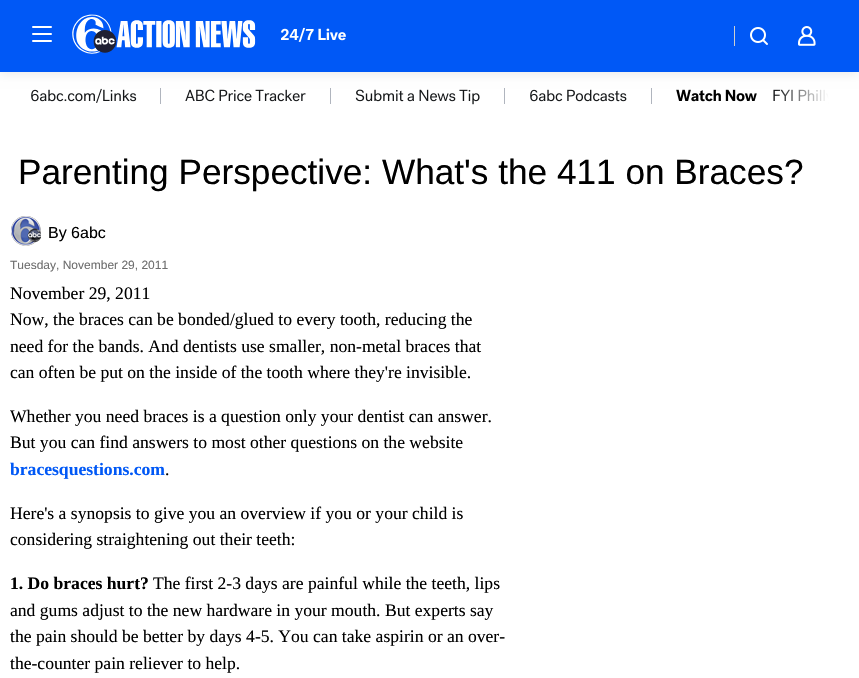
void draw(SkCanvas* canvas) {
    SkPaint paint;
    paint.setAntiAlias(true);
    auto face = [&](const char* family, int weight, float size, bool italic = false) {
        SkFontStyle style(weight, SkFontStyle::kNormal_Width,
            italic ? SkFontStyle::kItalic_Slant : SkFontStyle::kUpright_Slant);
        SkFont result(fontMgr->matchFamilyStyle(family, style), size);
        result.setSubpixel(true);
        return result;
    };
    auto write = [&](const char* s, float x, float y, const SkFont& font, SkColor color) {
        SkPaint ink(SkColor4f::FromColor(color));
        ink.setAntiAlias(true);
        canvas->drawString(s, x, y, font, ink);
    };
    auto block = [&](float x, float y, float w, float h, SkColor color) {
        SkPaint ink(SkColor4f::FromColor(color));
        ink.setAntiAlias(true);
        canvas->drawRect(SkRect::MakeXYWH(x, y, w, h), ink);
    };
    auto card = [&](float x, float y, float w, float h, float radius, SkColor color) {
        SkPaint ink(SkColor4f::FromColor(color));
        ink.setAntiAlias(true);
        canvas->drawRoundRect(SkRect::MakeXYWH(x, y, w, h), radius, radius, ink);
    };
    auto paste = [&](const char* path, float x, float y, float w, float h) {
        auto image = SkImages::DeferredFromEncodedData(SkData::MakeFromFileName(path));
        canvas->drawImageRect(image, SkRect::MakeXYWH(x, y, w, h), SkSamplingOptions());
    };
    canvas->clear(SK_ColorWHITE);
    paste("pic5.png", 31, 88, 106, 15);
    block(160, 88, 1, 16, SkColorSetRGB(176, 181, 190));
    paste("pic6.png", 185, 89, 121, 13);
    block(330, 88, 1, 16, SkColorSetRGB(176, 181, 190));
    paste("pic7.png", 355, 89, 125, 16);
    block(504, 88, 1, 16, SkColorSetRGB(176, 181, 190));
    paste("pic8.png", 530, 89, 97, 13);
    block(651, 88, 1, 16, SkColorSetRGB(176, 181, 190));
    paste("pic9.png", 676, 89, 81, 13);
    paste("pic10.png", 773, 89, 56, 16);
    {
        const SkColor colors[] = {SK_ColorWHITE, SkColorSetARGB(0, 255, 255, 255)};
        const float stops[] = {0, 1};
        const SkPoint ends[] = {{829, 96}, {776, 96}};
        paint.setShader(SkGradientShader::MakeLinear(ends, colors, stops, 2, SkTileMode::kClamp));
        paint.setAlpha(255);
    }
    canvas->drawRect(SkRect::MakeXYWH(777, 89, 52, 16), paint);
    paint.setShader(nullptr);
    paint.setColor(SkColorSetARGB(20, 0, 0, 0));
    paint.setMaskFilter(SkMaskFilter::MakeBlur(kNormal_SkBlurStyle, 5));
    canvas->drawRect(SkRect::MakeXYWH(0, 2, 859, 72), paint);
    paint.setMaskFilter(nullptr);
    block(0, 0, 859, 72, SkColorSetRGB(0, 88, 246));
    card(32, 33, 20, 2, 1, SK_ColorWHITE);
    card(32, 26, 20, 2, 1, SK_ColorWHITE);
    card(32, 40, 20, 2, 1, SK_ColorWHITE);
    paste("pic1.png", 72, 14, 184, 40);
    paste("pic2.png", 280, 27, 66, 15);
    block(734, 26, 1, 20, SkColorSetRGB(206, 207, 207));
    paste("pic3.png", 750, 27, 18, 18);
    paste("pic4.png", 798, 26, 18, 20);
    auto kFont1 = face("Liberation Sans", 400, 35.2f);
    write("Parenting Perspective: What's the 411 on Braces?", 18, 184, kFont1, SK_ColorBLACK);
    paste("pic11.png", 11, 216, 30, 30);
    auto kFont2 = face("Liberation Sans", 400, 16);
    write("By 6abc", 48, 238, kFont2, SK_ColorBLACK);
    auto kFont3 = face("Liberation Sans", 400, 12);
    write("Tuesday, November 29, 2011", 10, 269, kFont3, SkColorSetRGB(110, 110, 110));
    auto kFont4 = face("Liberation Serif", 400, 17.6f);
    write("November 29, 2011", 10, 299, kFont4, SK_ColorBLACK);
    write("Now, the braces can be bonded/glued to every tooth, reducing the", 10, 325, kFont4, SK_ColorBLACK);
    write("need for the bands. And dentists use smaller, non-metal braces that", 10, 352, kFont4, SK_ColorBLACK);
    write("can often be put on the inside of the tooth where they're invisible.", 10, 378, kFont4, SK_ColorBLACK);
    write("Whether you need braces is a question only your dentist can answer.", 10, 422, kFont4, SK_ColorBLACK);
    write("But you can find answers to most other questions on the website", 10, 448, kFont4, SK_ColorBLACK);
    auto kFont5 = face("Liberation Serif", 700, 17.6f);
    write("bracesquestions.com", 10, 475, kFont5, SkColorSetRGB(0, 88, 246));
    write(".", 165, 475, kFont4, SK_ColorBLACK);
    write("Here's a synopsis to give you an overview if you or your child is", 10, 519, kFont4, SK_ColorBLACK);
    write("considering straightening out their teeth:", 10, 545, kFont4, SK_ColorBLACK);
    write("1. Do braces hurt?", 10, 589, kFont5, SK_ColorBLACK);
    write("The first 2-3 days are painful while the teeth, lips", 153, 589, kFont4, SK_ColorBLACK);
    write("and gums adjust to the new hardware in your mouth. But experts say", 10, 616, kFont4, SK_ColorBLACK);
    write("the pain should be better by days 4-5. You can take aspirin or an over-", 10, 642, kFont4, SK_ColorBLACK);
    write("the-counter pain reliever to help.", 10, 669, kFont4, SK_ColorBLACK);
}
